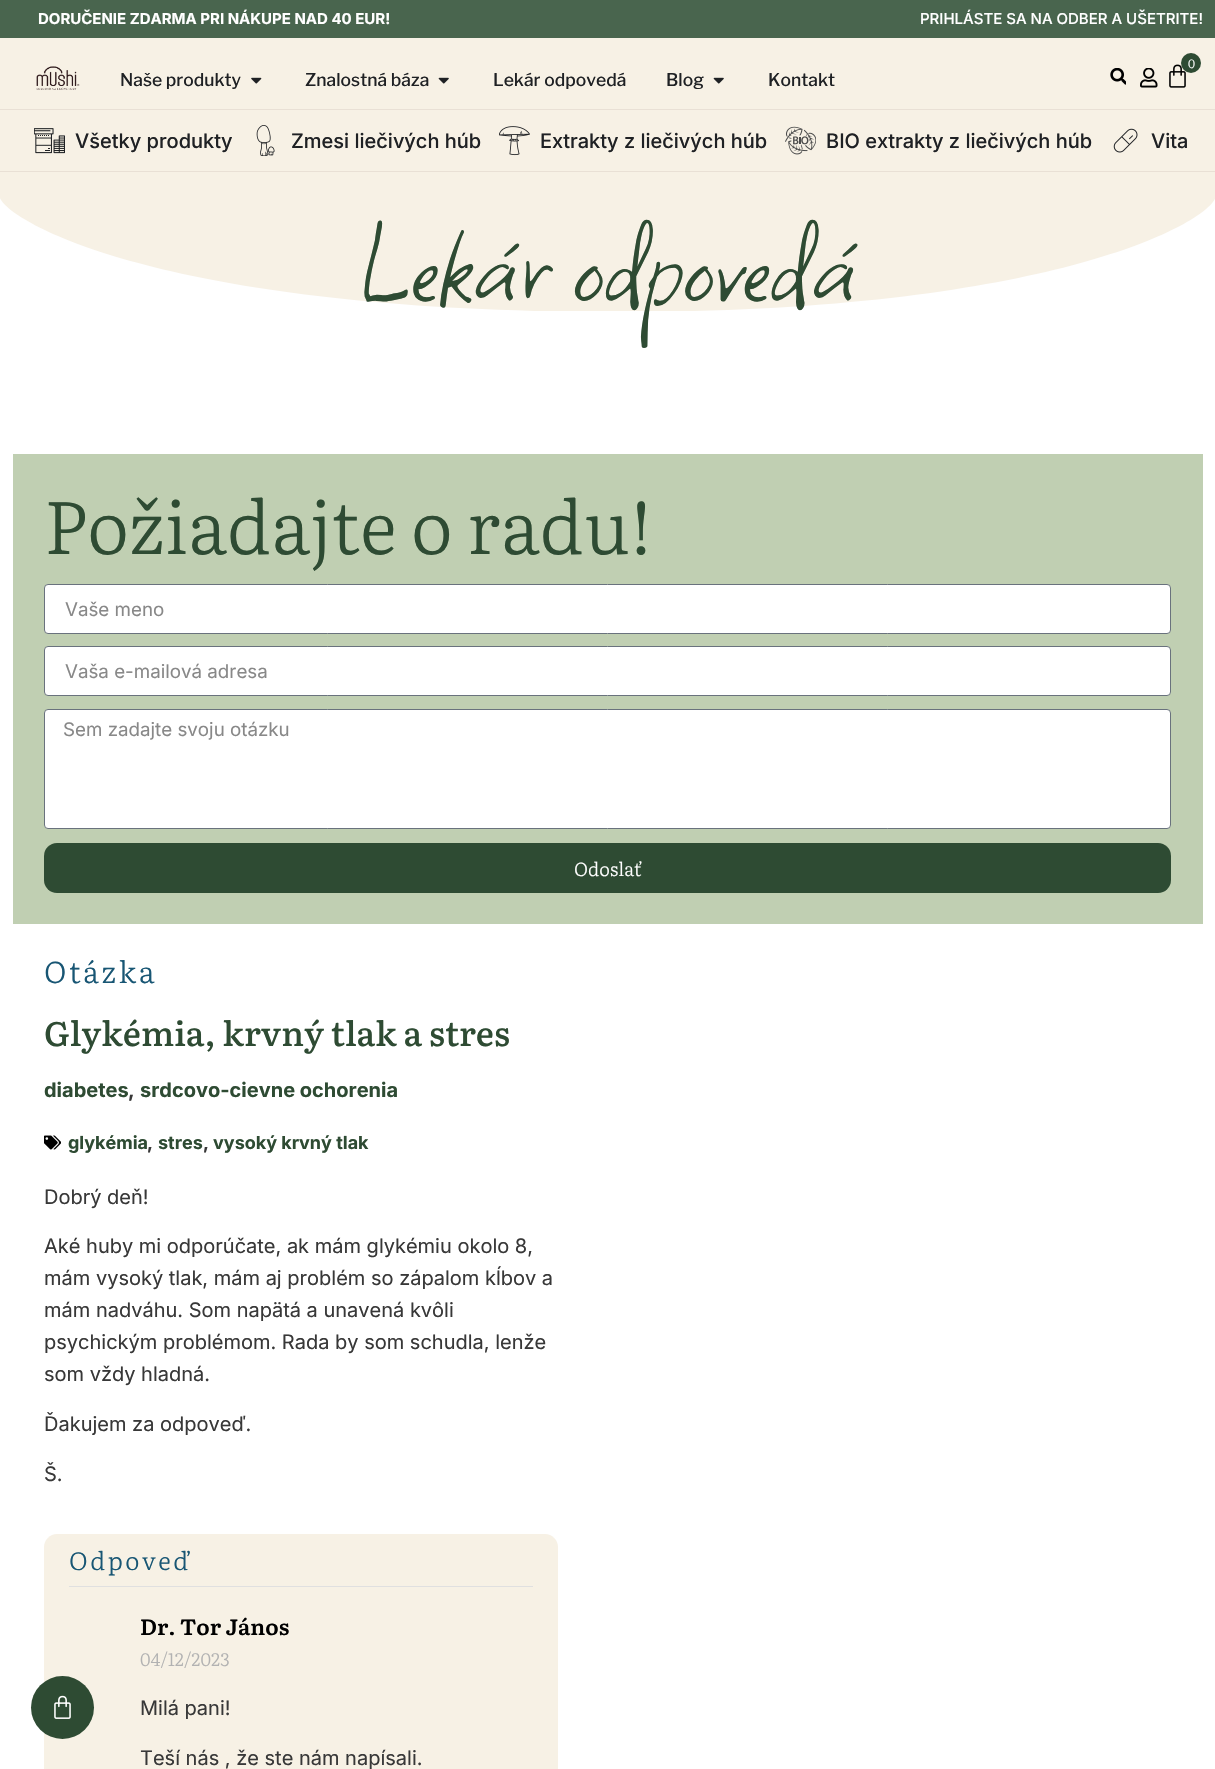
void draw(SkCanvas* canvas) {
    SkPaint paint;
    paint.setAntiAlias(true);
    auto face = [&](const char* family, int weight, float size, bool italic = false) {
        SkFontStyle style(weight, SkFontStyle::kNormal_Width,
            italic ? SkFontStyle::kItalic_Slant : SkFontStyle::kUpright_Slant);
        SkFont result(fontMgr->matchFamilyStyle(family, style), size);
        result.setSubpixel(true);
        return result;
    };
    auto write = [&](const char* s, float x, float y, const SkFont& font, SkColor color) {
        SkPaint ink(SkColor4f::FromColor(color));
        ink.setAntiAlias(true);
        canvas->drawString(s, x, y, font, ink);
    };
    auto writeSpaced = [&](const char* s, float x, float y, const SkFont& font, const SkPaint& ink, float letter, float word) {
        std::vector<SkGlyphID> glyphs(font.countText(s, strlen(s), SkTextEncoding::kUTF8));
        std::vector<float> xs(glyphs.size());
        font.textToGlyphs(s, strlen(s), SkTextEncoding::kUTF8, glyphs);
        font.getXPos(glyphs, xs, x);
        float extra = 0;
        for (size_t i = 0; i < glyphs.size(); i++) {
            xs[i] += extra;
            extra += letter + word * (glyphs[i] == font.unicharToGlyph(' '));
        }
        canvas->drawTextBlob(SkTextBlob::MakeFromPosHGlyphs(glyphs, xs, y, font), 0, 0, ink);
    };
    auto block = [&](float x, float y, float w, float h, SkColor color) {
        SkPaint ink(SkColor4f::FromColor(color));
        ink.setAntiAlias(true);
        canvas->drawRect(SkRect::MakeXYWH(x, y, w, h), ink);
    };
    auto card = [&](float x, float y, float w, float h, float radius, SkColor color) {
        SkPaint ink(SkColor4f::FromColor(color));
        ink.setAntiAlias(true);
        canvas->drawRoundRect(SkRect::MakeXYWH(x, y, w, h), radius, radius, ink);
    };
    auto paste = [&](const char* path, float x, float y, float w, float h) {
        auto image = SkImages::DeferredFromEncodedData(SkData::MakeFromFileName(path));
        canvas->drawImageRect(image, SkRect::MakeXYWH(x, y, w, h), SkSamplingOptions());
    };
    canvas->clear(SK_ColorWHITE);
    block(0, 0, 1215, 38, SkColorSetRGB(73, 101, 78));
    auto kFont1 = face("Inter", 700, 15);
    write("DORUČENIE ZDARMA PRI NÁKUPE NAD 40 EUR!", 38, 24, kFont1, SK_ColorWHITE);
    auto kFont2 = face("Inter", 500, 15);
    write("PRIHLÁSTE SA NA ODBER A UŠETRITE!", 920, 24, kFont2, SK_ColorWHITE);
    block(0, 38, 1215, 152, SkColorSetRGB(247, 241, 229));
    paste("pic1.png", 1169, 64, 17, 24);
    paint.setColor(SkColorSetRGB(46, 75, 51));
    canvas->drawCircle(1191, 63, 10, paint);
    auto kFont3 = face("Literata", 300, 12);
    write("0", 1188, 68, kFont3, SK_ColorWHITE);
    paste("pic2.png", 36, 66, 44, 24);
    auto kFont4 = face("Libre Franklin", 500, 17.5f);
    write("Naše produkty", 120, 86, kFont4, SkColorSetRGB(31, 33, 36));
    paste("pic3.png", 251, 77, 11, 7);
    write("Znalostná báza", 305, 86, kFont4, SkColorSetRGB(31, 33, 36));
    paste("pic4.png", 438, 77, 11, 7);
    write("Lekár odpovedá", 493, 86, kFont4, SkColorSetRGB(31, 33, 36));
    write("Blog", 666, 86, kFont4, SkColorSetRGB(31, 33, 36));
    paste("pic4.png", 713, 77, 11, 7);
    write("Kontakt", 768, 86, kFont4, SkColorSetRGB(31, 33, 36));
    paste("pic5.png", 1110, 68, 16, 17);
    paste("pic6.png", 1140, 68, 18, 20);
    block(0, 109, 1215, 1, SkColorSetRGB(233, 224, 213));
    paste("pic7.png", 34, 128, 31, 26);
    auto kFont5 = face("Inter", 500, 20);
    write("Všetky produkty", 75, 148, kFont5, SkColorSetRGB(31, 33, 36));
    paste("pic8.png", 256, 125, 19, 31);
    write("Zmesi liečivých húb", 291, 148, kFont5, SkColorSetRGB(31, 33, 36));
    paste("pic9.png", 499, 126, 31, 30);
    write("Extrakty z liečivých húb", 540, 148, kFont5, SkColorSetRGB(31, 33, 36));
    paste("pic10.png", 785, 126, 31, 29);
    write("BIO extrakty z liečivých húb", 826, 148, kFont5, SkColorSetRGB(31, 33, 36));
    paste("pic11.png", 1113, 128, 25, 25);
    write("Vita", 1151, 148, kFont5, SkColorSetRGB(31, 33, 36));
    block(0, 171, 1215, 1, SkColorSetRGB(233, 224, 213));
    canvas->save();
    canvas->clipRect(SkRect::MakeXYWH(0, 190, 1215, 121));
    paint.setColor(SkColorSetRGB(247, 241, 229));
    canvas->drawPath(SkPathBuilder().moveTo(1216, 195).lineTo(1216, 190).lineTo(-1, 190).lineTo(-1, 195).cubicTo(0, 218, 153, 311, 608, 312).cubicTo(1062, 313, 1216, 218, 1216, 195).close().detach(), paint);
    canvas->restore();
    auto kFont6 = face("Square Peg", 400, 125);
    write("Lekár odpovedá", 356, 299, kFont6, SkColorSetRGB(46, 75, 51));
    block(13, 454, 1190, 470, SkColorSetRGB(192, 207, 178));
    auto kFont7 = face("Literata", 300, 73.75f);
    write("Požiadajte o radu!", 44, 554, kFont7, SkColorSetRGB(46, 75, 51));
    paint.setColor(SK_ColorWHITE);
    canvas->drawRoundRect(SkRect::MakeXYWH(44.5f, 584.5f, 1126, 49), 3.5f, 3.5f, paint);
    paint.setStyle(SkPaint::kStroke_Style);
    paint.setStrokeWidth(1);
    paint.setColor(SkColorSetRGB(105, 114, 125));
    canvas->drawRoundRect(SkRect::MakeXYWH(44.5f, 584.5f, 1126, 49), 3.5f, 3.5f, paint);
    auto kFont8 = face("Inter", 400, 18.75f);
    write("Vaše meno", 65, 616, kFont8, SkColorSetRGB(136, 136, 136));
    paint.setStyle(SkPaint::kFill_Style);
    paint.setColor(SK_ColorWHITE);
    canvas->drawRoundRect(SkRect::MakeXYWH(44.5f, 646.5f, 1126, 49), 3.5f, 3.5f, paint);
    paint.setStyle(SkPaint::kStroke_Style);
    paint.setColor(SkColorSetRGB(105, 114, 125));
    canvas->drawRoundRect(SkRect::MakeXYWH(44.5f, 646.5f, 1126, 49), 3.5f, 3.5f, paint);
    write("Vaša e-mailová adresa", 65, 678, kFont8, SkColorSetRGB(136, 136, 136));
    paint.setStyle(SkPaint::kFill_Style);
    paint.setColor(SK_ColorWHITE);
    canvas->drawRoundRect(SkRect::MakeXYWH(44.5f, 709.5f, 1126, 119), 3.5f, 3.5f, paint);
    paint.setStyle(SkPaint::kStroke_Style);
    paint.setColor(SkColorSetRGB(105, 114, 125));
    canvas->drawRoundRect(SkRect::MakeXYWH(44.5f, 709.5f, 1126, 119), 3.5f, 3.5f, paint);
    write("Sem zadajte svoju otázku", 63, 736, kFont8, SkColorSetRGB(136, 136, 136));
    card(44, 843, 1127, 50, 13, SkColorSetRGB(46, 75, 51));
    auto kFont9 = face("Literata", 300, 18.75f);
    write("Odoslať", 574, 876, kFont9, SK_ColorWHITE);
    auto kFont10 = face("Literata", 300, 30);
    paint.setStyle(SkPaint::kFill_Style);
    paint.setColor(SkColorSetRGB(24, 86, 116));
    writeSpaced("Otázka", 44, 983, kFont10, paint, 2.5f, 0);
    auto kFont11 = face("Literata", 500, 34);
    write("Glykémia, krvný tlak a stres", 44, 1046, kFont11, SkColorSetRGB(46, 75, 51));
    auto kFont12 = face("Inter", 700, 20);
    write("diabetes", 44, 1097, kFont12, SkColorSetRGB(46, 75, 51));
    write(",", 128, 1097, kFont12, SkColorSetRGB(56, 56, 56));
    write("srdcovo-cievne ochorenia", 140, 1097, kFont12, SkColorSetRGB(46, 75, 51));
    paste("pic12.png", 44, 1135, 17, 15);
    auto kFont13 = face("Inter", 700, 18);
    write("glykémia", 68, 1149, kFont13, SkColorSetRGB(46, 75, 51));
    write(",", 147, 1149, kFont13, SkColorSetRGB(56, 56, 56));
    write("stres", 158, 1149, kFont13, SkColorSetRGB(46, 75, 51));
    write(",", 203, 1149, kFont13, SkColorSetRGB(56, 56, 56));
    write("vysoký krvný tlak", 213, 1149, kFont13, SkColorSetRGB(46, 75, 51));
    auto kFont14 = face("Inter", 400, 20);
    write("Dobrý deň!", 44, 1204, kFont14, SkColorSetRGB(56, 56, 56));
    write("Aké huby mi odporúčate, ak mám glykémiu okolo 8,", 44, 1253, kFont14, SkColorSetRGB(56, 56, 56));
    write("mám vysoký tlak, mám aj problém so zápalom kĺbov a", 44, 1285, kFont14, SkColorSetRGB(56, 56, 56));
    write("mám nadváhu. Som napätá a unavená kvôli", 44, 1317, kFont14, SkColorSetRGB(56, 56, 56));
    write("psychickým problémom. Rada by som schudla, lenže", 44, 1349, kFont14, SkColorSetRGB(56, 56, 56));
    write("som vždy hladná.", 44, 1381, kFont14, SkColorSetRGB(56, 56, 56));
    write("Ďakujem za odpoveď.", 44, 1431, kFont14, SkColorSetRGB(56, 56, 56));
    write("Š.", 44, 1481, kFont14, SkColorSetRGB(56, 56, 56));
    paint.setColor(SkColorSetRGB(247, 241, 229));
    canvas->drawPath(SkPathBuilder().moveTo(57, 1534).lineTo(545, 1534).cubicTo(552, 1534, 558, 1540, 558, 1547).lineTo(558, 1603).lineTo(44, 1603).lineTo(44, 1547).cubicTo(44, 1540, 50, 1534, 57, 1534).close().detach(), paint);
    auto kFont15 = face("Literata", 300, 25);
    paint.setColor(SkColorSetRGB(24, 86, 116));
    writeSpaced("Odpoveď", 69, 1570, kFont15, paint, 2.5f, 0);
    block(69, 1586, 464, 1, SkColorSetRGB(224, 224, 224));
    block(44, 1603, 514, 166, SkColorSetRGB(247, 241, 229));
    auto kFont16 = face("Literata", 600, 22);
    write("Dr. Tor János", 140, 1635, kFont16, SK_ColorBLACK);
    auto kFont17 = face("Literata", 300, 18);
    write("04/12/2023", 140, 1666, kFont17, SkColorSetRGB(178, 178, 178));
    write("Milá pani!", 140, 1715, kFont14, SkColorSetRGB(56, 56, 56));
    write("Teší nás , že ste nám napísali.", 140, 1765, kFont14, SkColorSetRGB(56, 56, 56));
    paint.setColor(SkColorSetRGB(46, 75, 51));
    canvas->drawCircle(62.5f, 1707.5f, 31.5f, paint);
    paste("pic13.png", 54, 1695, 17, 24);
}
